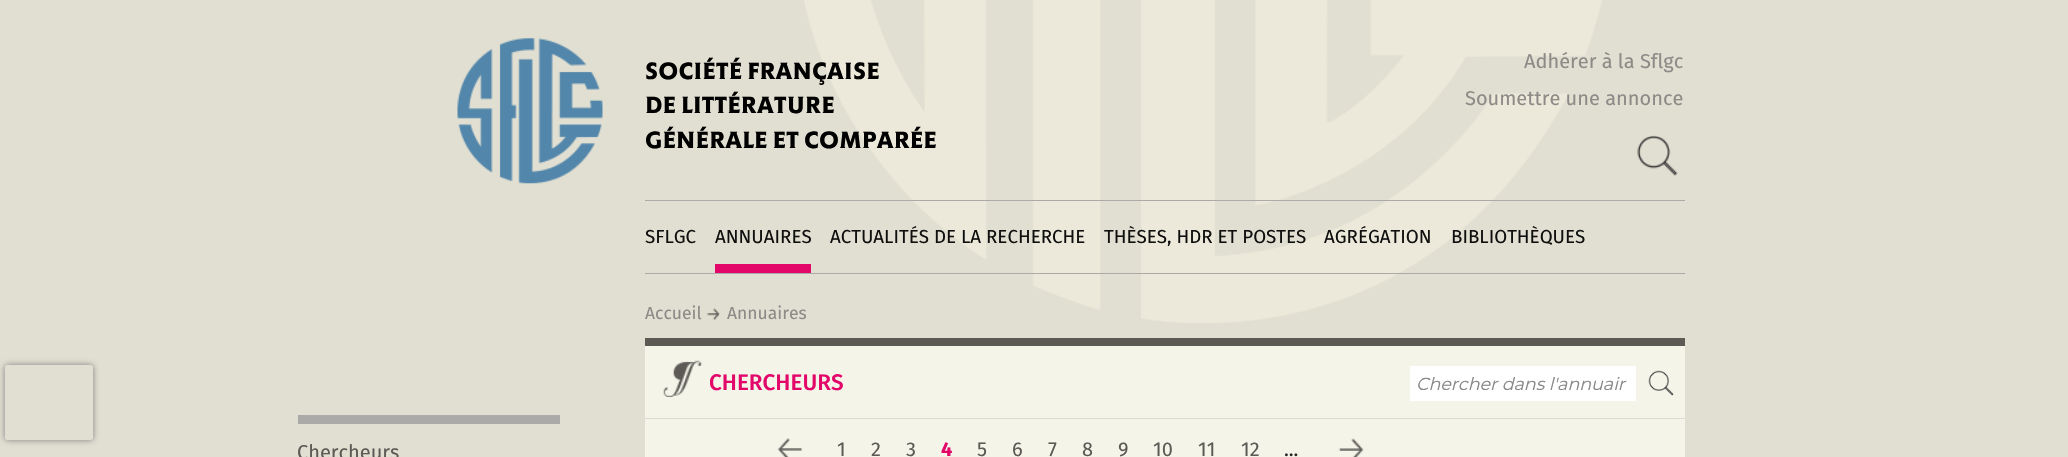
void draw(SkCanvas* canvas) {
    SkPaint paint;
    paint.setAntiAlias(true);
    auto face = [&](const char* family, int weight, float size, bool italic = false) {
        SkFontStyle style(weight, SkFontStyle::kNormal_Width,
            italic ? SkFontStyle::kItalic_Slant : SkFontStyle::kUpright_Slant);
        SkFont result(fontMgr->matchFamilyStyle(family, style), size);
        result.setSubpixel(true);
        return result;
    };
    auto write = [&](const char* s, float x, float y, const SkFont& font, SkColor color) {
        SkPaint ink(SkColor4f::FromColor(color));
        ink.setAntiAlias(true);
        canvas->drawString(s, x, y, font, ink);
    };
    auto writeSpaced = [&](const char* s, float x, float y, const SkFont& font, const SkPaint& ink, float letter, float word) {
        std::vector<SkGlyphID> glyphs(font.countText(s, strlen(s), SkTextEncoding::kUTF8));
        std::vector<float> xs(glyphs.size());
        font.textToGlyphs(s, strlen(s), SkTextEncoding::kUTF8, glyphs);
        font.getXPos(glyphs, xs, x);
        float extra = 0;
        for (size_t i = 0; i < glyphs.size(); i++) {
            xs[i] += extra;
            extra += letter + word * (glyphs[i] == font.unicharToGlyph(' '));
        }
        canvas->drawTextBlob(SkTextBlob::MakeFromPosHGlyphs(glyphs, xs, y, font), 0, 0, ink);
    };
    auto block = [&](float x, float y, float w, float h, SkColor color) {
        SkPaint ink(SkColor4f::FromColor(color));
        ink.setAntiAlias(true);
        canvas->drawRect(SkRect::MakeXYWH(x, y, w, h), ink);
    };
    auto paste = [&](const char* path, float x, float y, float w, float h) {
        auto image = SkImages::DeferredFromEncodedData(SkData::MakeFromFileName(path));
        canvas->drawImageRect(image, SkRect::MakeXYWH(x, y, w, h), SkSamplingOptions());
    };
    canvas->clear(SkColorSetRGB(225, 223, 209));
    canvas->save();
    canvas->clipPath(SkPathBuilder(SkPathFillType::kEvenOdd).moveTo(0, 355).lineTo(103, 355).lineTo(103, 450).lineTo(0, 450).close().moveTo(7.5f, 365).lineTo(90.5f, 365).cubicTo(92, 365, 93, 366, 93, 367.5f).lineTo(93, 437.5f).cubicTo(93, 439, 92, 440, 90.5f, 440).lineTo(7.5f, 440).cubicTo(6, 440, 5, 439, 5, 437.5f).lineTo(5, 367.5f).cubicTo(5, 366, 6, 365, 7.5f, 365).close().detach(), true);
    paint.setColor(SkColorSetRGB(128, 128, 128));
    paint.setMaskFilter(SkMaskFilter::MakeBlur(kNormal_SkBlurStyle, 3));
    canvas->drawRoundRect(SkRect::MakeXYWH(5, 365, 88, 75), 2.5f, 2.5f, paint);
    paint.setMaskFilter(nullptr);
    canvas->restore();
    paste("pic1.png", 804, 0, 798, 323);
    paste("pic2.png", 457, 38, 146, 146);
    auto kFont1 = face("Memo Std", 500, 23);
    paint.setColor(SK_ColorBLACK);
    writeSpaced("SOCIÉTÉ FRANÇAISE", 645, 79, kFont1, paint, 0.25f, 0);
    writeSpaced("DE LITTÉRATURE", 645, 113, kFont1, paint, 0.25f, 0);
    writeSpaced("GÉNÉRALE ET COMPARÉE", 645, 148, kFont1, paint, 0.25f, 0);
    auto kFont2 = face("Fira Sans", 400, 20);
    write("Adhérer à la Sflgc", 1524, 68, kFont2, SkColorSetRGB(141, 138, 135));
    write("Soumettre une annonce", 1465, 105, kFont2, SkColorSetRGB(141, 138, 135));
    paste("pic3.png", 1637, 135, 41, 41);
    block(645, 200, 1040, 1, SkColorSetRGB(172, 170, 168));
    auto kFont3 = face("Fira Sans", 400, 18.75f);
    write("SFLGC", 645, 243, kFont3, SkColorSetRGB(15, 15, 14));
    write("ANNUAIRES", 715, 243, kFont3, SkColorSetRGB(15, 15, 14));
    block(715, 264, 96, 9, SkColorSetRGB(227, 7, 106));
    write("ACTUALITÉS DE LA RECHERCHE", 830, 243, kFont3, SkColorSetRGB(15, 15, 14));
    write("THÈSES, HDR ET POSTES", 1104, 243, kFont3, SkColorSetRGB(15, 15, 14));
    write("AGRÉGATION", 1324, 243, kFont3, SkColorSetRGB(15, 15, 14));
    write("BIBLIOTHÈQUES", 1451, 243, kFont3, SkColorSetRGB(15, 15, 14));
    block(645, 273, 1040, 1, SkColorSetRGB(172, 170, 168));
    auto kFont4 = face("Fira Sans", 400, 17.5f);
    write("Accueil", 645, 319, kFont4, SkColorSetRGB(141, 138, 135));
    paste("pic4.png", 707, 308, 13, 12);
    write("Annuaires", 727, 319, kFont4, SkColorSetRGB(141, 138, 135));
    block(298, 415, 262, 9, SkColorSetRGB(172, 170, 168));
    write("Chercheurs", 297, 459, kFont2, SkColorSetRGB(93, 90, 86));
    block(645, 346, 1040, 111, SkColorSetRGB(244, 244, 233));
    block(645, 338, 1040, 8, SkColorSetRGB(93, 90, 86));
    block(645, 418, 1040, 1, SkColorSetRGB(223, 218, 212));
    paste("pic5.png", 663, 360, 39, 37);
    auto kFont5 = face("Fira Sans", 500, 22.5f);
    write("CHERCHEURS", 709, 390, kFont5, SkColorSetRGB(227, 7, 106));
    block(1410, 366, 226, 35, SK_ColorWHITE);
    auto kFont6 = face("Montserrat", 400, 17.5f, true);
    write("Chercher dans l'annuair", 1416, 390, kFont6, SkColorSetRGB(134, 134, 134));
    paste("pic6.png", 1648, 370, 26, 26);
    paste("pic7.png", 777, 438, 26, 19);
    write("1", 837, 456, kFont2, SkColorSetRGB(93, 90, 86));
    write("2", 871, 456, kFont2, SkColorSetRGB(93, 90, 86));
    write("3", 906, 456, kFont2, SkColorSetRGB(93, 90, 86));
    auto kFont7 = face("Fira Sans", 700, 20);
    write("4", 941, 456, kFont7, SkColorSetRGB(227, 7, 106));
    write("5", 977, 456, kFont2, SkColorSetRGB(93, 90, 86));
    write("6", 1012, 456, kFont2, SkColorSetRGB(93, 90, 86));
    write("7", 1048, 456, kFont2, SkColorSetRGB(93, 90, 86));
    write("8", 1082, 456, kFont2, SkColorSetRGB(93, 90, 86));
    write("9", 1118, 456, kFont2, SkColorSetRGB(93, 90, 86));
    write("10", 1153, 456, kFont2, SkColorSetRGB(93, 90, 86));
    write("11", 1198, 456, kFont2, SkColorSetRGB(93, 90, 86));
    write("12", 1241, 456, kFont2, SkColorSetRGB(93, 90, 86));
    write("...", 1284, 456, kFont2, SkColorSetRGB(36, 36, 36));
    paste("pic8.png", 1338, 438, 26, 19);
}
